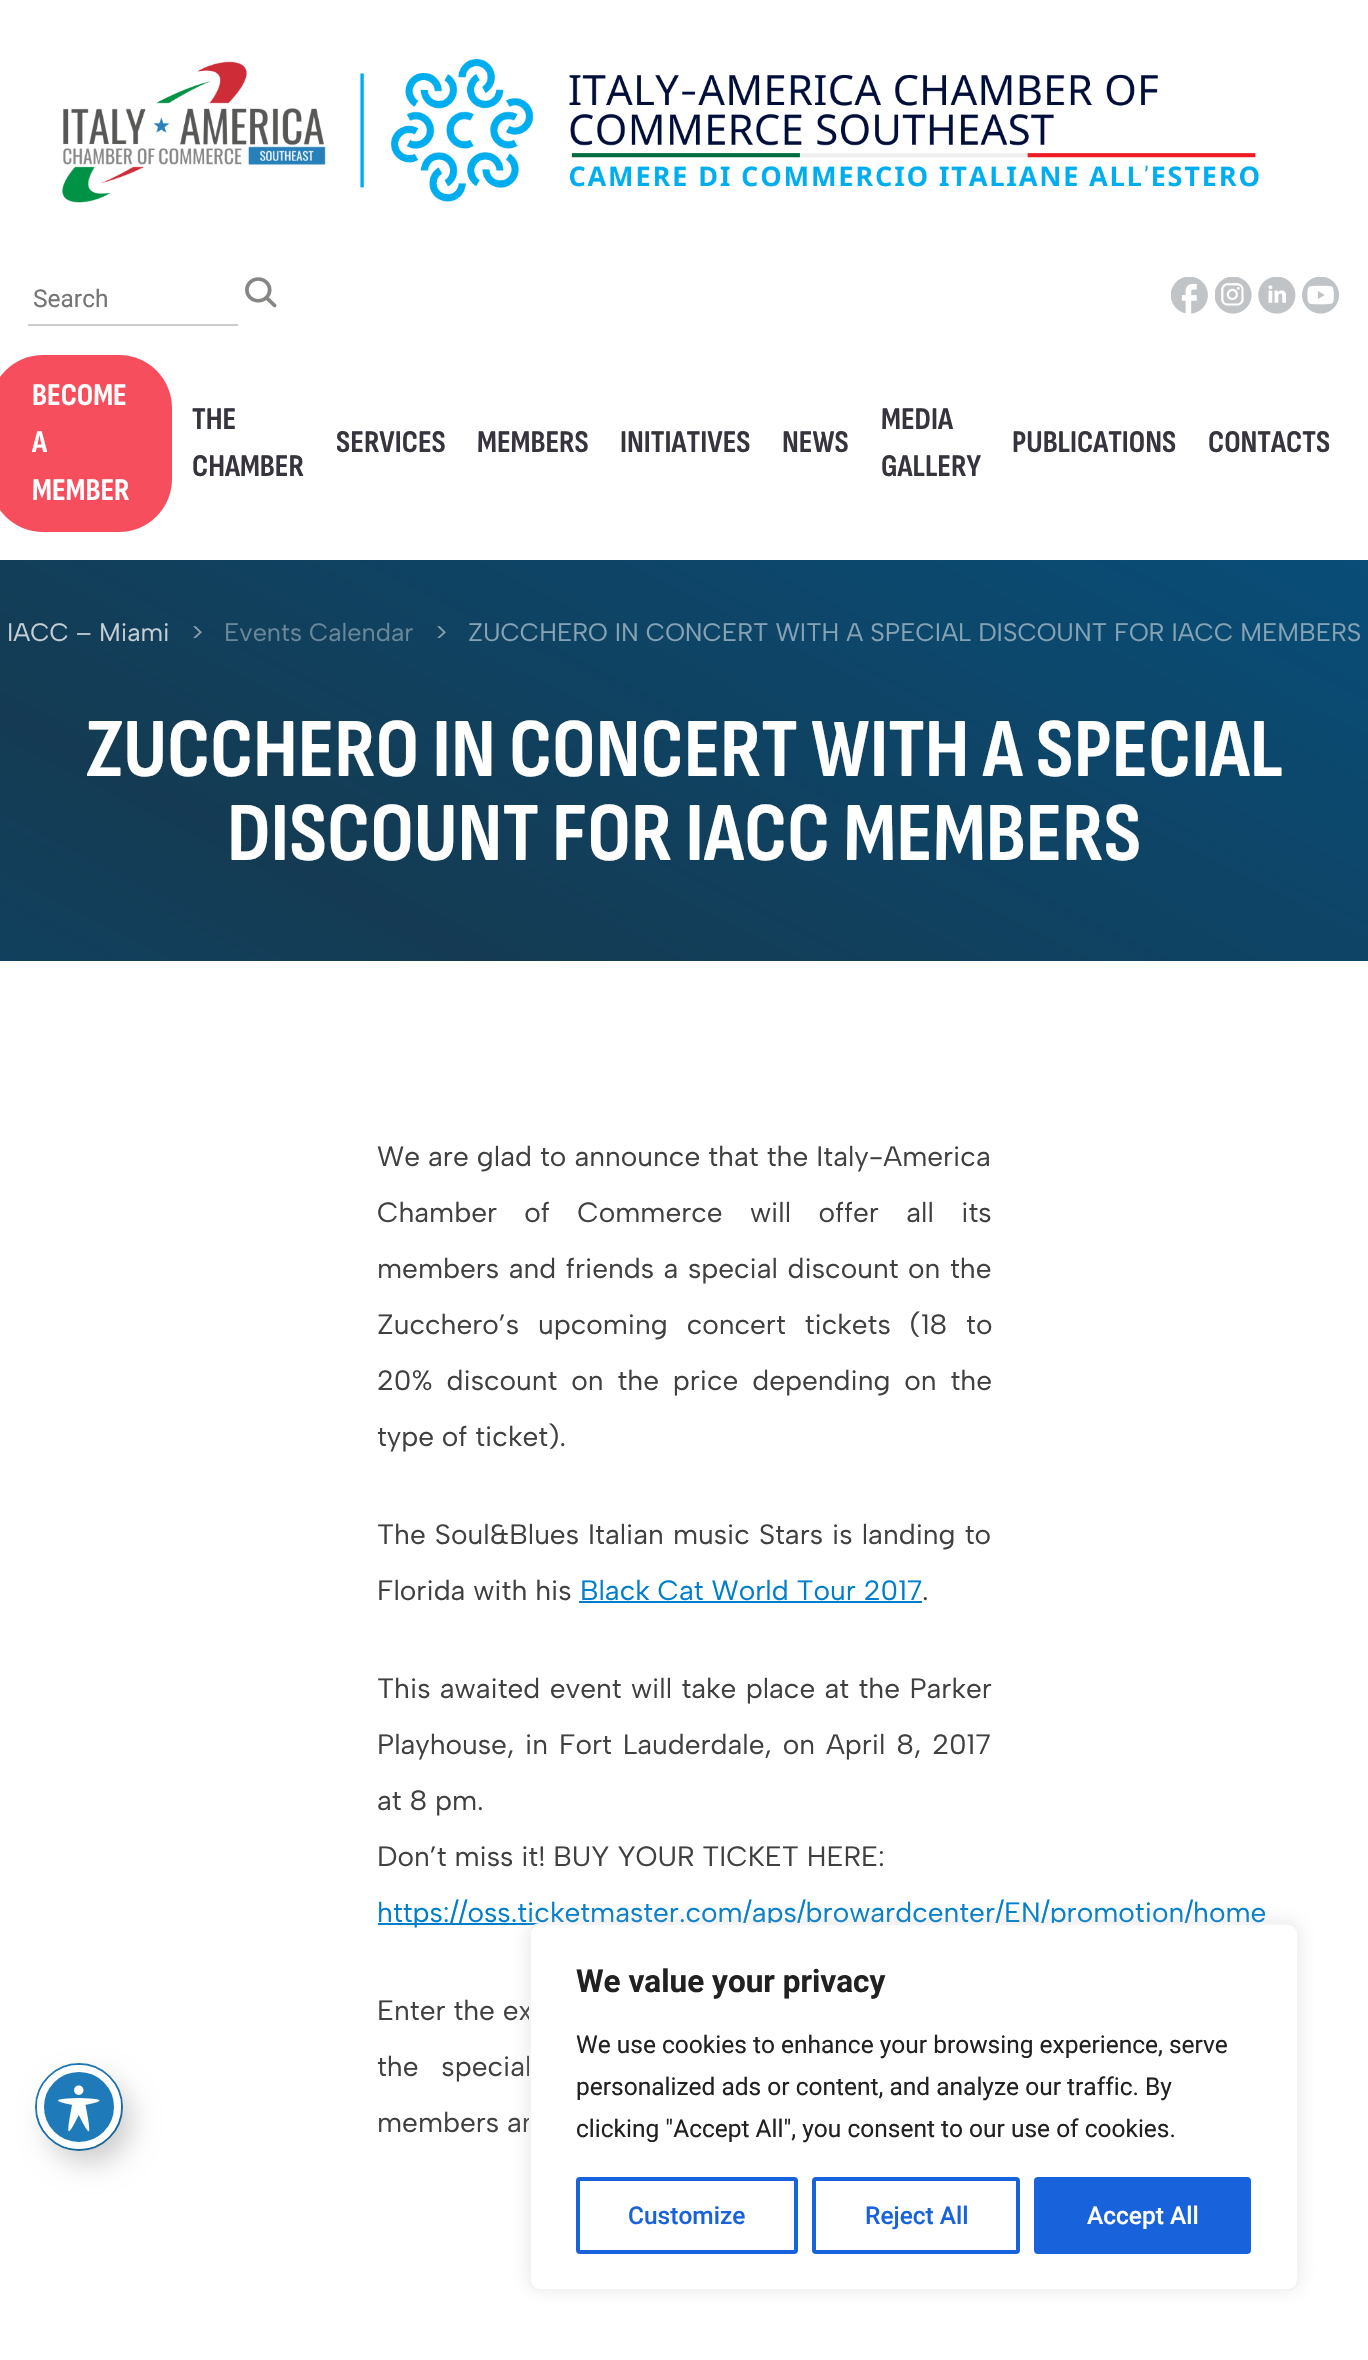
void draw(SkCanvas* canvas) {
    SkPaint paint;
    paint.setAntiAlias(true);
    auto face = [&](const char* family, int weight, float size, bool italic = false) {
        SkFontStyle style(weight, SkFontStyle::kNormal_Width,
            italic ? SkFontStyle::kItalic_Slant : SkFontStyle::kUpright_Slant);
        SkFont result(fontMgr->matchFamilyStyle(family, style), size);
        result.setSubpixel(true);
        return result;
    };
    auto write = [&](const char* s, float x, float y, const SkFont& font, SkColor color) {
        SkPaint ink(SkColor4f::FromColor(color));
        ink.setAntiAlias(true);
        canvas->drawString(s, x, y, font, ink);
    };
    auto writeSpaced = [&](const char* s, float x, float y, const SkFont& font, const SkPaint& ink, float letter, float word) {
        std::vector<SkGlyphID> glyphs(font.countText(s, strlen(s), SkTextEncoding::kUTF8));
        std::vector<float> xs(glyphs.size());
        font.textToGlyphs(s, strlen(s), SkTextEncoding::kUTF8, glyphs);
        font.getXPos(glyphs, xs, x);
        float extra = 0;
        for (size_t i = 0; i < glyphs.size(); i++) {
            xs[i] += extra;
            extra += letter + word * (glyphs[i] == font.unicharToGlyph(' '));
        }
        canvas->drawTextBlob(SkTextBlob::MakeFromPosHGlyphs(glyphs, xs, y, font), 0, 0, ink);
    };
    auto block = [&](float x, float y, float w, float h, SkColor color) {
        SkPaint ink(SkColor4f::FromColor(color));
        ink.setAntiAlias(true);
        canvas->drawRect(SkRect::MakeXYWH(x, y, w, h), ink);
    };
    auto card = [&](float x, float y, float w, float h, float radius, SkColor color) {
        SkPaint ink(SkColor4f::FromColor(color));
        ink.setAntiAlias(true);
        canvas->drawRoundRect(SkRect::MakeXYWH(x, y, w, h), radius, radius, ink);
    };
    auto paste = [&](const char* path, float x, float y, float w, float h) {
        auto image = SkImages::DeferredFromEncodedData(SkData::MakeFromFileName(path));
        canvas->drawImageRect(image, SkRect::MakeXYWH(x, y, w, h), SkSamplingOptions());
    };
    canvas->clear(SK_ColorWHITE);
    paste("pic1.png", 62, 59, 1197, 144);
    block(28, 324, 210, 2, SkColorSetRGB(204, 204, 204));
    auto kFont1 = face("Roboto", 400, 24.5f);
    write("Search", 33, 307, kFont1, SkColorSetRGB(117, 117, 117));
    paste("pic2.png", 245, 277, 32, 31);
    paste("pic3.png", 1171, 277, 37, 37);
    paste("pic4.png", 1215, 277, 37, 37);
    paste("pic5.png", 1258, 277, 38, 37);
    paste("pic6.png", 1302, 277, 38, 37);
    card(-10, 355, 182, 177, 53, SkColorSetRGB(246, 78, 93));
    auto kFont2 = face("Sofia Sans Condensed", 700, 31.5f);
    write("BECOME", 32, 405, kFont2, SK_ColorWHITE);
    write("A", 32, 452, kFont2, SK_ColorWHITE);
    write("MEMBER", 32, 500, kFont2, SK_ColorWHITE);
    write("THE", 192, 429, kFont2, SkColorSetRGB(55, 52, 62));
    write("CHAMBER", 192, 476, kFont2, SkColorSetRGB(55, 52, 62));
    write("SERVICES", 336, 452, kFont2, SkColorSetRGB(55, 52, 62));
    write("MEMBERS", 477, 452, kFont2, SkColorSetRGB(55, 52, 62));
    write("INITIATIVES", 620, 452, kFont2, SkColorSetRGB(55, 52, 62));
    write("NEWS", 782, 452, kFont2, SkColorSetRGB(55, 52, 62));
    write("MEDIA", 881, 429, kFont2, SkColorSetRGB(55, 52, 62));
    write("GALLERY", 881, 476, kFont2, SkColorSetRGB(55, 52, 62));
    write("PUBLICATIONS", 1012, 452, kFont2, SkColorSetRGB(55, 52, 62));
    write("CONTACTS", 1208, 452, kFont2, SkColorSetRGB(55, 52, 62));
    {
        const SkColor colors[] = {SkColorSetRGB(20, 59, 83), SkColorSetRGB(0, 91, 148), SkColorSetRGB(20, 59, 83), SkColorSetRGB(0, 91, 148)};
        const float stops[] = {0, 0.33f, 0.67f, 1};
        const SkPoint ends[] = {{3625, -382}, {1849, 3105}};
        paint.setShader(SkGradientShader::MakeLinear(ends, colors, stops, 4, SkTileMode::kClamp));
        paint.setAlpha(255);
    }
    canvas->drawRect(SkRect::MakeXYWH(0, 560, 1368, 401), paint);
    auto kFont3 = face("Albert Sans", 400, 25.2f);
    write("IACC – Miami", 7, 641, kFont3, SkColorSetRGB(196, 207, 213));
    write(">", 191, 641, kFont3, SkColorSetRGB(136, 159, 173));
    write("Events Calendar", 224, 641, kFont3, SkColorSetRGB(106, 136, 154));
    write(">", 435, 641, kFont3, SkColorSetRGB(136, 159, 173));
    write("ZUCCHERO IN CONCERT WITH A SPECIAL DISCOUNT FOR IACC MEMBERS", 468, 641, kFont3, SkColorSetRGB(134, 163, 181));
    auto kFont4 = face("Sofia Sans Condensed", 700, 84);
    write("ZUCCHERO IN CONCERT WITH A SPECIAL", 86, 776, kFont4, SK_ColorWHITE);
    write("DISCOUNT FOR IACC MEMBERS", 227, 860, kFont4, SK_ColorWHITE);
    auto kFont5 = face("Albert Sans", 400, 28);
    paint.setShader(nullptr);
    paint.setColor(SkColorSetRGB(64, 64, 64));
    writeSpaced("We are glad to announce that the Italy-America", 377, 1166, kFont5, paint, 0, 0.25f);
    writeSpaced("Chamber of Commerce will offer all its", 377, 1222, kFont5, paint, 0, 19.5f);
    writeSpaced("members and friends a special discount on the", 377, 1278, kFont5, paint, 0, 1.75f);
    writeSpaced("Zucchero’s upcoming concert tickets (18 to", 377, 1334, kFont5, paint, 0, 11);
    writeSpaced("20% discount on the price depending on the", 377, 1390, kFont5, paint, 0, 6);
    write("type of ticket).", 377, 1446, kFont5, SkColorSetRGB(64, 64, 64));
    writeSpaced("The Soul&Blues Italian music Stars is landing to", 377, 1544, kFont5, paint, 0, 1.25f);
    write("Florida with his", 377, 1600, kFont5, SkColorSetRGB(64, 64, 64));
    write("Black Cat World Tour 2017", 580, 1600, kFont5, SkColorSetRGB(0, 126, 203));
    block(579, 1601, 343, 2, SkColorSetRGB(0, 126, 203));
    write(".", 922, 1600, kFont5, SkColorSetRGB(64, 64, 64));
    writeSpaced("This awaited event will take place at the Parker", 377, 1698, kFont5, paint, 0, 1.5f);
    writeSpaced("Playhouse, in Fort Lauderdale, on April 8, 2017", 377, 1754, kFont5, paint, 0, 3);
    write("at 8 pm.", 377, 1810, kFont5, SkColorSetRGB(64, 64, 64));
    write("Don’t miss it! BUY YOUR TICKET HERE:", 377, 1866, kFont5, SkColorSetRGB(64, 64, 64));
    block(378, 1923, 162, 2, SkColorSetRGB(0, 126, 203));
    write("https://oss.ticketmaster.com/aps/browardcenter/EN/promotion/home", 377, 1922, kFont5, SkColorSetRGB(0, 126, 203));
    write("Enter the ex", 377, 2020, kFont5, SkColorSetRGB(64, 64, 64));
    writeSpaced("the special", 377, 2076, kFont5, paint, 0, 15);
    write("members an", 377, 2132, kFont5, SkColorSetRGB(64, 64, 64));
    paint.setStyle(SkPaint::kStroke_Style);
    paint.setStrokeWidth(2);
    paint.setColor(SkColorSetRGB(30, 122, 185));
    canvas->drawCircle(79, 2107, 43, paint);
    paint.setStyle(SkPaint::kFill_Style);
    paint.setColor(SkColorSetARGB(51, 0, 0, 0));
    paint.setMaskFilter(SkMaskFilter::MakeBlur(kNormal_SkBlurStyle, 14));
    canvas->drawRoundRect(SkRect::MakeXYWH(47, 2079, 84, 84), 42, 42, paint);
    paint.setMaskFilter(nullptr);
    paint.setColor(SkColorSetRGB(30, 122, 185));
    canvas->drawCircle(79, 2107, 38.5f, paint);
    paint.setStyle(SkPaint::kStroke_Style);
    paint.setStrokeWidth(7);
    paint.setColor(SK_ColorWHITE);
    canvas->drawCircle(79, 2107, 38.5f, paint);
    paste("pic7.png", 58, 2085, 42, 47);
    paint.setStyle(SkPaint::kFill_Style);
    paint.setColor(SkColorSetARGB(77, 172, 171, 171));
    paint.setMaskFilter(SkMaskFilter::MakeBlur(kNormal_SkBlurStyle, 9));
    canvas->drawRoundRect(SkRect::MakeXYWH(529, 1922, 770, 367), 11, 11, paint);
    paint.setMaskFilter(nullptr);
    paint.setColor(SK_ColorWHITE);
    canvas->drawRoundRect(SkRect::MakeXYWH(530, 1924, 768, 366), 10, 10, paint);
    paint.setStyle(SkPaint::kStroke_Style);
    paint.setStrokeWidth(2);
    paint.setColor(SkColorSetRGB(244, 244, 244));
    canvas->drawRoundRect(SkRect::MakeXYWH(530, 1924, 768, 366), 10, 10, paint);
    auto kFont6 = face("Roboto", 700, 31.5f);
    write("We value your privacy", 576, 1992, kFont6, SkColorSetRGB(33, 33, 33));
    write("We use cookies to enhance your browsing experience, serve", 576, 2053, kFont1, SkColorSetRGB(33, 33, 33));
    write("personalized ads or content, and analyze our traffic. By", 576, 2095, kFont1, SkColorSetRGB(33, 33, 33));
    write("clicking \"Accept All\", you consent to our use of cookies.", 576, 2137, kFont1, SkColorSetRGB(33, 33, 33));
    paint.setStrokeWidth(4);
    paint.setColor(SkColorSetRGB(24, 99, 220));
    canvas->drawRoundRect(SkRect::MakeXYWH(578, 2179, 218, 73), 2, 2, paint);
    auto kFont7 = face("Roboto", 500, 24.5f);
    write("Customize", 628, 2224, kFont7, SkColorSetRGB(24, 99, 220));
    canvas->drawRoundRect(SkRect::MakeXYWH(814, 2179, 204, 73), 2, 2, paint);
    write("Reject All", 865, 2224, kFont7, SkColorSetRGB(24, 99, 220));
    paint.setStyle(SkPaint::kFill_Style);
    canvas->drawRoundRect(SkRect::MakeXYWH(1036, 2179, 213, 73), 2, 2, paint);
    paint.setStyle(SkPaint::kStroke_Style);
    canvas->drawRoundRect(SkRect::MakeXYWH(1036, 2179, 213, 73), 2, 2, paint);
    write("Accept All", 1087, 2224, kFont7, SK_ColorWHITE);
}
